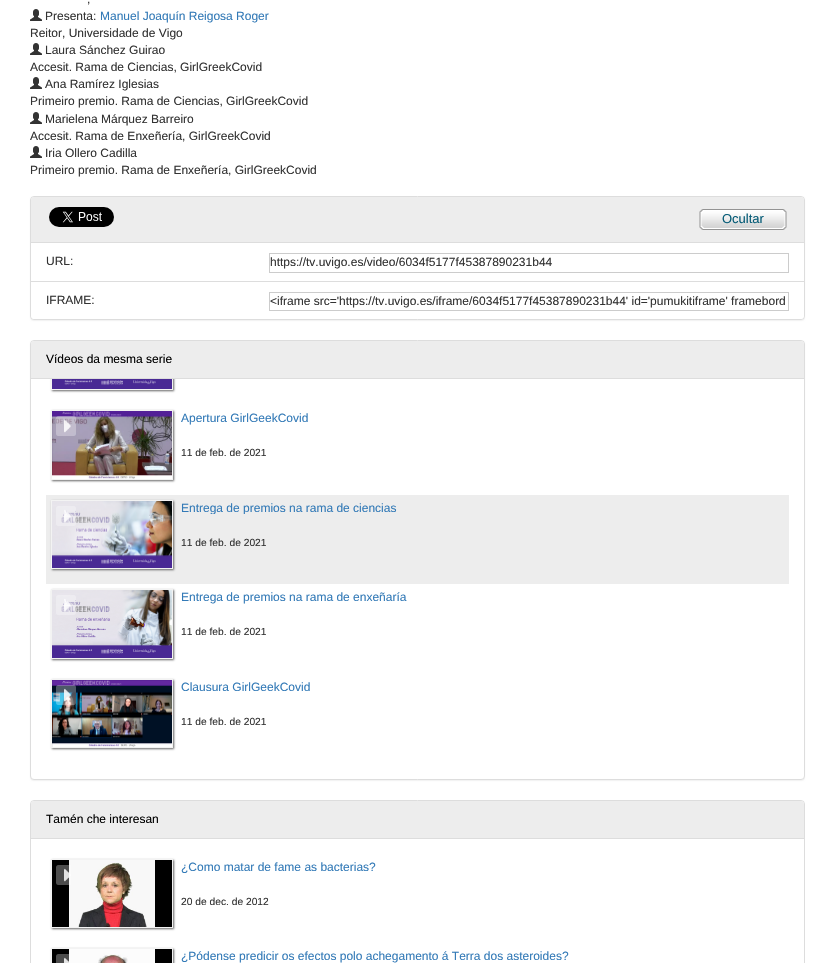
void draw(SkCanvas* canvas) {
    SkPaint paint;
    paint.setAntiAlias(true);
    auto face = [&](const char* family, int weight, float size, bool italic = false) {
        SkFontStyle style(weight, SkFontStyle::kNormal_Width,
            italic ? SkFontStyle::kItalic_Slant : SkFontStyle::kUpright_Slant);
        SkFont result(fontMgr->matchFamilyStyle(family, style), size);
        result.setSubpixel(true);
        return result;
    };
    auto write = [&](const char* s, float x, float y, const SkFont& font, SkColor color) {
        SkPaint ink(SkColor4f::FromColor(color));
        ink.setAntiAlias(true);
        canvas->drawString(s, x, y, font, ink);
    };
    auto block = [&](float x, float y, float w, float h, SkColor color) {
        SkPaint ink(SkColor4f::FromColor(color));
        ink.setAntiAlias(true);
        canvas->drawRect(SkRect::MakeXYWH(x, y, w, h), ink);
    };
    auto paste = [&](const char* path, float x, float y, float w, float h) {
        auto image = SkImages::DeferredFromEncodedData(SkData::MakeFromFileName(path));
        canvas->drawImageRect(image, SkRect::MakeXYWH(x, y, w, h), SkSamplingOptions());
    };
    canvas->clear(SK_ColorWHITE);
    auto kFont1 = face("Liberation Sans", 400, 12);
    write(",", 87, 3, kFont1, SkColorSetRGB(51, 51, 51));
    paste("pic1.png", 30, 9, 12, 12);
    write("Presenta:", 45, 20, kFont1, SkColorSetRGB(51, 51, 51));
    write("Manuel Joaquín Reigosa Roger", 100, 20, kFont1, SkColorSetRGB(51, 122, 183));
    write("Reitor, Universidade de Vigo", 30, 37, kFont1, SkColorSetRGB(51, 51, 51));
    paste("pic1.png", 30, 43, 12, 12);
    write("Laura Sánchez Guirao", 45, 54, kFont1, SkColorSetRGB(51, 51, 51));
    write("Accesit. Rama de Ciencias, GirlGreekCovid", 30, 71, kFont1, SkColorSetRGB(51, 51, 51));
    paste("pic1.png", 30, 77, 12, 12);
    write("Ana Ramírez Iglesias", 45, 88, kFont1, SkColorSetRGB(51, 51, 51));
    write("Primeiro premio. Rama de Ciencias, GirlGreekCovid", 30, 105, kFont1, SkColorSetRGB(51, 51, 51));
    paste("pic1.png", 30, 112, 12, 12);
    write("Marielena Márquez Barreiro", 45, 123, kFont1, SkColorSetRGB(51, 51, 51));
    write("Accesit. Rama de Enxeñería, GirlGreekCovid", 30, 140, kFont1, SkColorSetRGB(51, 51, 51));
    paste("pic1.png", 30, 146, 12, 12);
    write("Iria Ollero Cadilla", 45, 157, kFont1, SkColorSetRGB(51, 51, 51));
    write("Primeiro premio. Rama de Enxeñería, GirlGreekCovid", 30, 174, kFont1, SkColorSetRGB(51, 51, 51));
    paint.setColor(SkColorSetARGB(13, 0, 0, 0));
    paint.setMaskFilter(SkMaskFilter::MakeBlur(kNormal_SkBlurStyle, 0.5f));
    canvas->drawRoundRect(SkRect::MakeXYWH(30, 197, 775, 124), 4, 4, paint);
    paint.setMaskFilter(nullptr);
    paint.setColor(SK_ColorWHITE);
    canvas->drawRoundRect(SkRect::MakeXYWH(30.5f, 196.5f, 774, 123), 3.5f, 3.5f, paint);
    paint.setStyle(SkPaint::kStroke_Style);
    paint.setStrokeWidth(1);
    paint.setColor(SkColorSetRGB(221, 221, 221));
    canvas->drawRoundRect(SkRect::MakeXYWH(30.5f, 196.5f, 774, 123), 3.5f, 3.5f, paint);
    paint.setStyle(SkPaint::kFill_Style);
    paint.setColor(SkColorSetRGB(237, 237, 237));
    canvas->drawPath(SkPathBuilder().moveTo(34, 197).lineTo(801, 197).cubicTo(802.5f, 197, 804, 198.5f, 804, 200).lineTo(804, 243).lineTo(31, 243).lineTo(31, 200).cubicTo(31, 198.5f, 32.5f, 197, 34, 197).close().detach(), paint);
    block(31, 242, 773, 1, SkColorSetRGB(221, 221, 221));
    paste("pic2.png", 49, 207, 65, 20);
    paste("pic3.png", 699, 209, 88, 21);
    auto kFont2 = face("Liberation Sans", 400, 13);
    write("Ocultar", 722, 223, kFont2, SkColorSetRGB(5, 91, 118));
    write("URL:", 46, 265, kFont1, SkColorSetRGB(51, 51, 51));
    paint.setStyle(SkPaint::kStroke_Style);
    paint.setColor(SkColorSetRGB(204, 204, 204));
    canvas->drawRect(SkRect::MakeXYWH(269.5f, 253.5f, 519, 19), paint);
    write("https://tv.uvigo.es/video/6034f5177f45387890231b44", 270, 266, kFont1, SkColorSetRGB(51, 51, 51));
    paint.setStyle(SkPaint::kFill_Style);
    paint.setColor(SK_ColorWHITE);
    canvas->drawPath(SkPathBuilder().moveTo(31, 281).lineTo(804, 281).lineTo(804, 316).cubicTo(804, 317.5f, 802.5f, 319, 801, 319).lineTo(34, 319).cubicTo(32.5f, 319, 31, 317.5f, 31, 316).close().detach(), paint);
    block(31, 281, 773, 1, SkColorSetRGB(221, 221, 221));
    write("IFRAME:", 46, 304, kFont1, SkColorSetRGB(51, 51, 51));
    paint.setStyle(SkPaint::kStroke_Style);
    paint.setColor(SkColorSetRGB(204, 204, 204));
    canvas->drawRect(SkRect::MakeXYWH(269.5f, 292.5f, 519, 18), paint);
    write("<iframe src='https://tv.uvigo.es/iframe/6034f5177f45387890231b44' id='pumukitiframe' framebord", 270, 305, kFont1, SkColorSetRGB(51, 51, 51));
    paint.setStyle(SkPaint::kFill_Style);
    paint.setColor(SkColorSetARGB(13, 0, 0, 0));
    paint.setMaskFilter(SkMaskFilter::MakeBlur(kNormal_SkBlurStyle, 0.5f));
    canvas->drawRoundRect(SkRect::MakeXYWH(30, 341, 775, 440), 4, 4, paint);
    paint.setMaskFilter(nullptr);
    paint.setColor(SK_ColorWHITE);
    canvas->drawRoundRect(SkRect::MakeXYWH(30.5f, 340.5f, 774, 439), 3.5f, 3.5f, paint);
    paint.setStyle(SkPaint::kStroke_Style);
    paint.setColor(SkColorSetRGB(221, 221, 221));
    canvas->drawRoundRect(SkRect::MakeXYWH(30.5f, 340.5f, 774, 439), 3.5f, 3.5f, paint);
    paint.setStyle(SkPaint::kFill_Style);
    paint.setColor(SkColorSetRGB(237, 237, 237));
    canvas->drawPath(SkPathBuilder().moveTo(34, 341).lineTo(801, 341).cubicTo(802.5f, 341, 804, 342.5f, 804, 344).lineTo(804, 379).lineTo(31, 379).lineTo(31, 344).cubicTo(31, 342.5f, 32.5f, 341, 34, 341).close().detach(), paint);
    block(31, 378, 773, 1, SkColorSetRGB(221, 221, 221));
    write("Vídeos da mesma serie", 46, 363, kFont1, SK_ColorBLACK);
    canvas->save();
    canvas->clipRect(SkRect::MakeXYWH(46, 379, 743, 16));
    paint.setColor(SkColorSetRGB(102, 102, 102));
    paint.setMaskFilter(SkMaskFilter::MakeBlur(kNormal_SkBlurStyle, 1));
    canvas->drawRect(SkRect::MakeXYWH(52, 322, 122, 69), paint);
    paint.setMaskFilter(nullptr);
    canvas->restore();
    block(51, 379, 122, 11, SkColorSetRGB(243, 243, 243));
    paste("pic4.png", 52, 379, 120, 10);
    paint.setMaskFilter(SkMaskFilter::MakeBlur(kNormal_SkBlurStyle, 1));
    canvas->drawRect(SkRect::MakeXYWH(52, 411, 122, 70), paint);
    paint.setMaskFilter(nullptr);
    block(51, 410, 122, 70, SkColorSetRGB(243, 243, 243));
    paste("pic5.png", 52, 411, 120, 68);
    paste("pic6.png", 56, 416, 20, 20);
    write("Apertura GirlGeekCovid", 181, 422, kFont1, SkColorSetRGB(51, 122, 183));
    auto kFont3 = face("Liberation Sans", 400, 10.25f);
    write("11 de feb. de 2021", 181, 456, kFont3, SkColorSetRGB(51, 51, 51));
    block(46, 495, 743, 89, SkColorSetRGB(237, 237, 237));
    paint.setMaskFilter(SkMaskFilter::MakeBlur(kNormal_SkBlurStyle, 1));
    canvas->drawRect(SkRect::MakeXYWH(52, 501, 122, 69), paint);
    paint.setMaskFilter(nullptr);
    block(51, 500, 122, 69, SkColorSetRGB(243, 243, 243));
    paste("pic7.png", 52, 501, 120, 67);
    paste("pic8.png", 56, 506, 20, 20);
    canvas->save();
    canvas->clipRect(SkRect::MakeXYWH(181, 500, 603, 14));
    write("Entrega de premios na rama de ciencias", 181, 512, kFont1, SkColorSetRGB(51, 122, 183));
    canvas->restore();
    write("11 de feb. de 2021", 181, 546, kFont3, SkColorSetRGB(51, 51, 51));
    paint.setMaskFilter(SkMaskFilter::MakeBlur(kNormal_SkBlurStyle, 1));
    canvas->drawRect(SkRect::MakeXYWH(52, 590, 122, 70), paint);
    paint.setMaskFilter(nullptr);
    block(51, 589, 122, 70, SkColorSetRGB(243, 243, 243));
    paste("pic9.png", 52, 590, 120, 68);
    paste("pic10.png", 56, 595, 20, 20);
    write("Entrega de premios na rama de enxeñaría", 181, 601, kFont1, SkColorSetRGB(51, 122, 183));
    write("11 de feb. de 2021", 181, 635, kFont3, SkColorSetRGB(51, 51, 51));
    paint.setMaskFilter(SkMaskFilter::MakeBlur(kNormal_SkBlurStyle, 1));
    canvas->drawRect(SkRect::MakeXYWH(52, 680, 122, 69), paint);
    paint.setMaskFilter(nullptr);
    block(51, 679, 122, 69, SkColorSetRGB(243, 243, 243));
    paste("pic11.png", 52, 680, 120, 67);
    paste("pic12.png", 56, 685, 20, 20);
    write("Clausura GirlGeekCovid", 181, 691, kFont1, SkColorSetRGB(51, 122, 183));
    write("11 de feb. de 2021", 181, 725, kFont3, SkColorSetRGB(51, 51, 51));
    paint.setStyle(SkPaint::kStroke_Style);
    paint.setColor(SkColorSetRGB(221, 221, 221));
    canvas->drawRoundRect(SkRect::MakeXYWH(30.5f, 800.5f, 774, 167), 3.5f, 3.5f, paint);
    paint.setStyle(SkPaint::kFill_Style);
    paint.setColor(SkColorSetRGB(237, 237, 237));
    canvas->drawPath(SkPathBuilder().moveTo(34, 801).lineTo(801, 801).cubicTo(802.5f, 801, 804, 802.5f, 804, 804).lineTo(804, 839).lineTo(31, 839).lineTo(31, 804).cubicTo(31, 802.5f, 32.5f, 801, 34, 801).close().detach(), paint);
    block(31, 838, 773, 1, SkColorSetRGB(221, 221, 221));
    write("Tamén che interesan", 46, 823, kFont1, SK_ColorBLACK);
    paint.setColor(SkColorSetRGB(102, 102, 102));
    paint.setMaskFilter(SkMaskFilter::MakeBlur(kNormal_SkBlurStyle, 1));
    canvas->drawRect(SkRect::MakeXYWH(52, 860, 122, 69), paint);
    paint.setMaskFilter(nullptr);
    block(51, 859, 122, 69, SkColorSetRGB(243, 243, 243));
    block(52, 860, 120, 67, SK_ColorBLACK);
    paste("pic14.png", 69, 860, 86, 67);
    paste("pic13.png", 56, 865, 15, 20);
    write("¿Como matar de fame as bacterias?", 181, 871, kFont1, SkColorSetRGB(51, 122, 183));
    write("20 de dec. de 2012", 181, 905, kFont3, SkColorSetRGB(51, 51, 51));
    paint.setMaskFilter(SkMaskFilter::MakeBlur(kNormal_SkBlurStyle, 1));
    canvas->drawRect(SkRect::MakeXYWH(52, 949, 122, 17), paint);
    paint.setMaskFilter(nullptr);
    block(51, 948, 122, 15, SkColorSetRGB(243, 243, 243));
    block(52, 949, 120, 14, SK_ColorBLACK);
    paste("pic15.png", 56, 954, 13, 9);
    paste("pic16.png", 69, 949, 86, 14);
    write("¿Pódense predicir os efectos polo achegamento á Terra dos asteroides?", 181, 960, kFont1, SkColorSetRGB(51, 122, 183));
}
